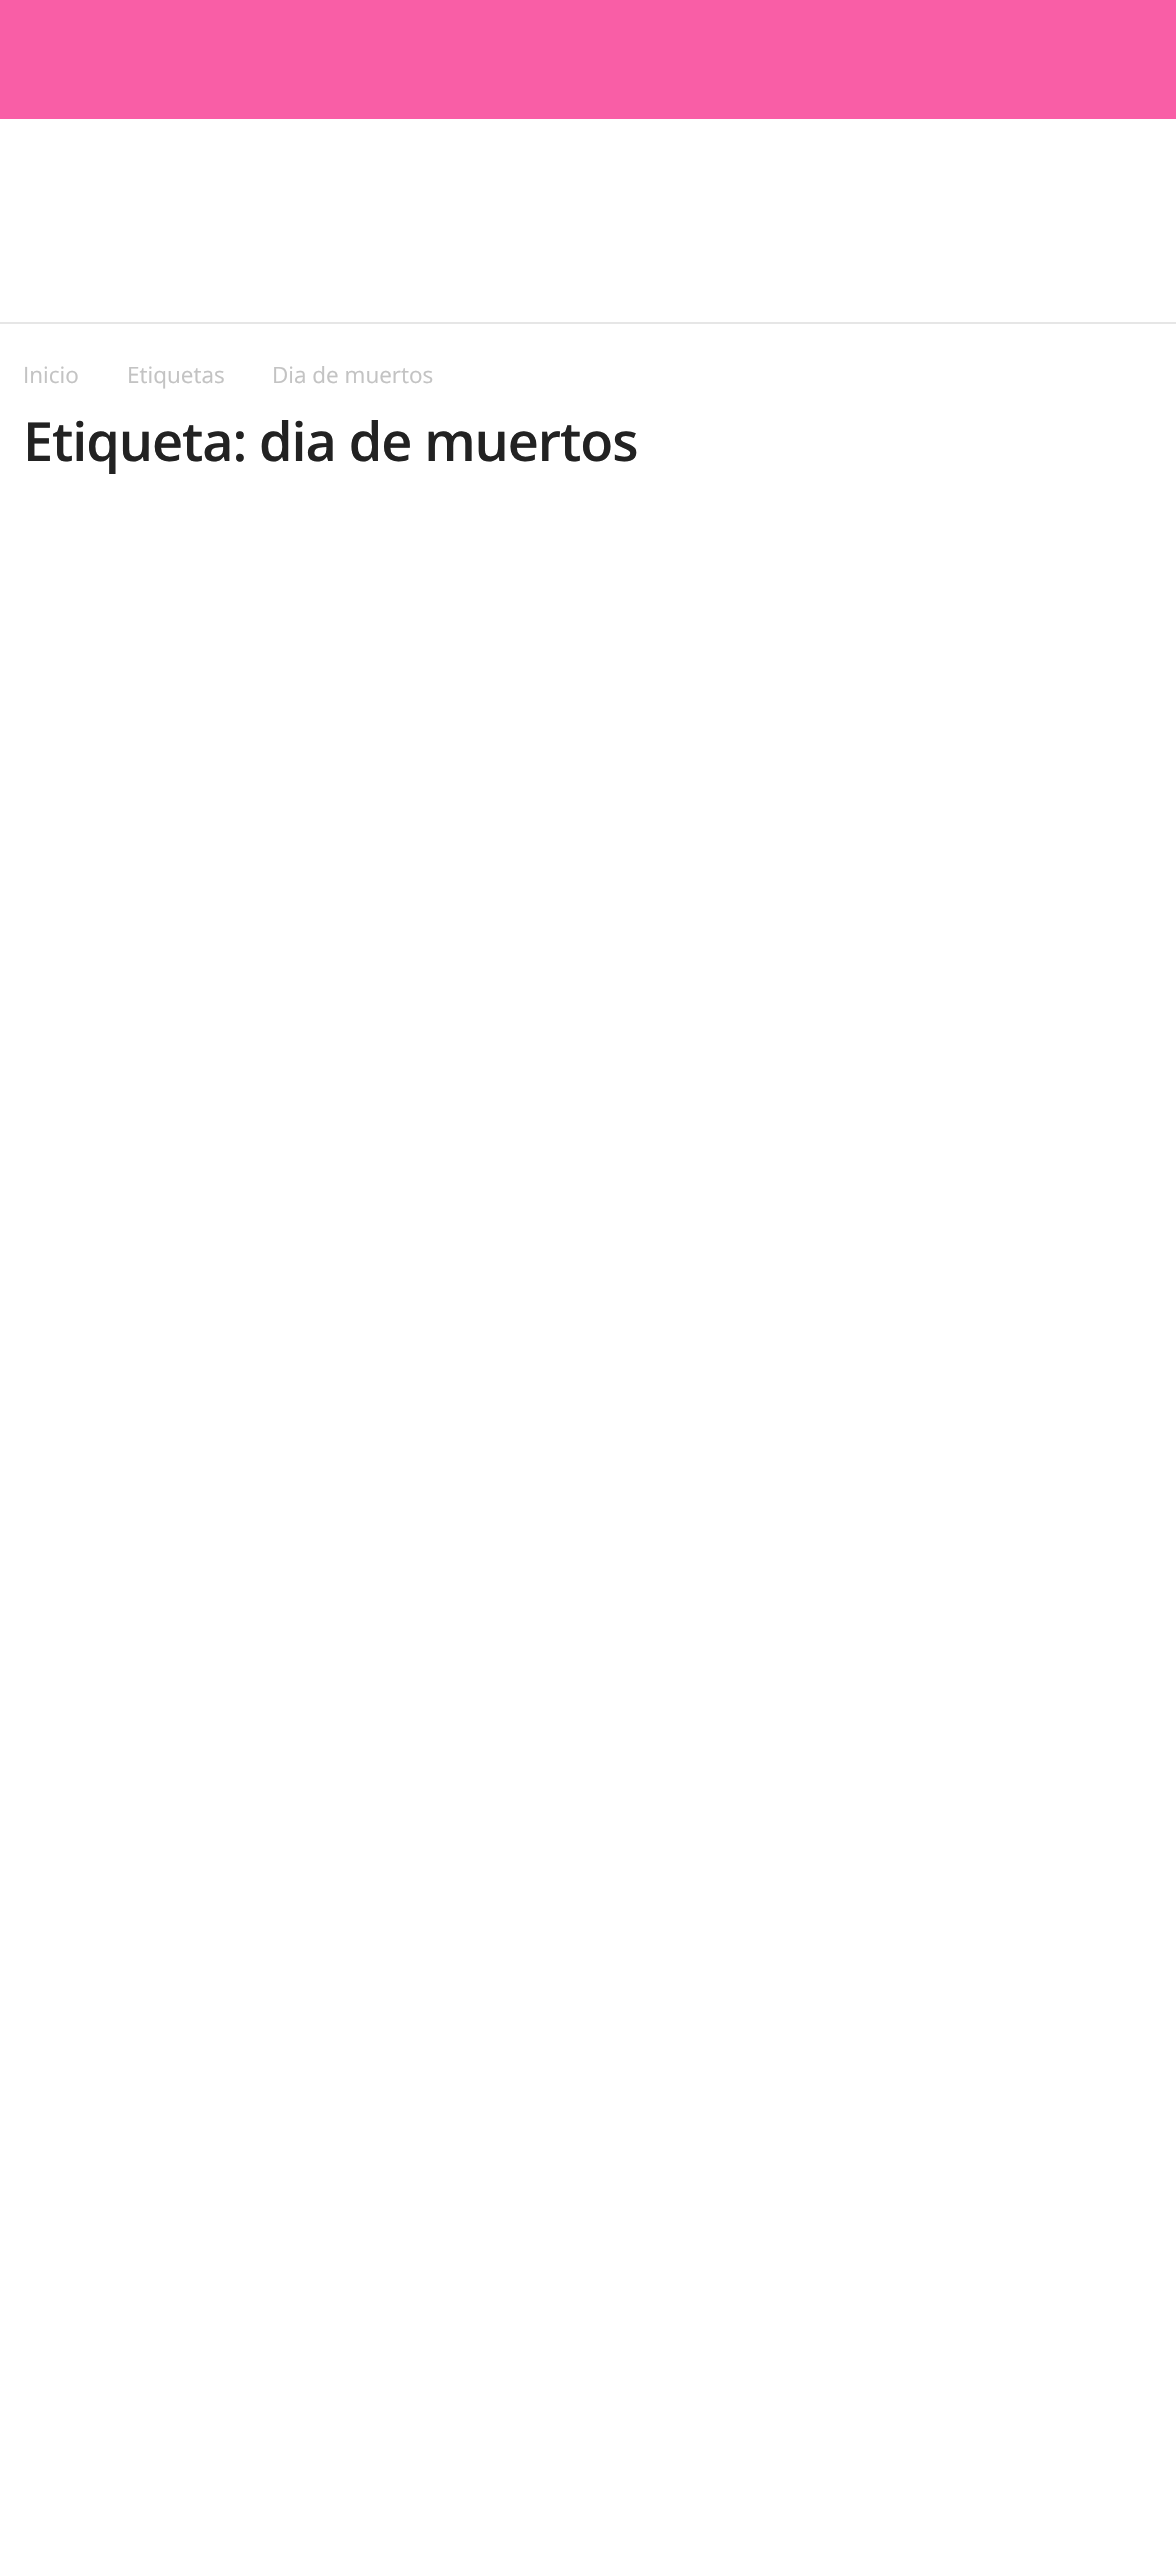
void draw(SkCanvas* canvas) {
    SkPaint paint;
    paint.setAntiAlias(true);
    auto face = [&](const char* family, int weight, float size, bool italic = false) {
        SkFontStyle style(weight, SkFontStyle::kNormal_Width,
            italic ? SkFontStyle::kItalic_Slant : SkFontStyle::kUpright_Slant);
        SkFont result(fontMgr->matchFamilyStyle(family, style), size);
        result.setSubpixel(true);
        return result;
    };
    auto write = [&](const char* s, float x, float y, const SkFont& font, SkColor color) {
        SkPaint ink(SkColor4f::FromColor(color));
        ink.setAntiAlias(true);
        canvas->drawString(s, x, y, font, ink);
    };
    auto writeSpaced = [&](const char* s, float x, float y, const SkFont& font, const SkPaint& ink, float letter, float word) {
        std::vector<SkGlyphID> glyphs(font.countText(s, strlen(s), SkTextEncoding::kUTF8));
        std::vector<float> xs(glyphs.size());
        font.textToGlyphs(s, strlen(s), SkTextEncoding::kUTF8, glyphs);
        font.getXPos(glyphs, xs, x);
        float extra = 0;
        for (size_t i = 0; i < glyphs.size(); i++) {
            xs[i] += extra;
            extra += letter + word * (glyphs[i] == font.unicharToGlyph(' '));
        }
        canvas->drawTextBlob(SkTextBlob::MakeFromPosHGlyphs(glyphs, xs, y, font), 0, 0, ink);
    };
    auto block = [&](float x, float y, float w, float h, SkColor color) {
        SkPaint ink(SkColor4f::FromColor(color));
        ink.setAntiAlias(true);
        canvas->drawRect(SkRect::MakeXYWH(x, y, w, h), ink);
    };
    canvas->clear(SK_ColorWHITE);
    block(0, 0, 1176, 119, SkColorSetRGB(249, 94, 166));
    block(0, 322, 1176, 2, SkColorSetRGB(230, 230, 230));
    auto kFont1 = face("Open Sans", 400, 22.5f);
    write("Inicio", 23, 383, kFont1, SkColorSetRGB(195, 195, 195));
    write("Etiquetas", 127, 383, kFont1, SkColorSetRGB(195, 195, 195));
    write("Dia de muertos", 272, 383, kFont1, SkColorSetRGB(195, 195, 195));
    auto kFont2 = face("Open Sans", 600, 54);
    paint.setColor(SkColorSetRGB(34, 34, 34));
    writeSpaced("Etiqueta: dia de muertos", 23, 461, kFont2, paint, -1.1f, 0);
}
